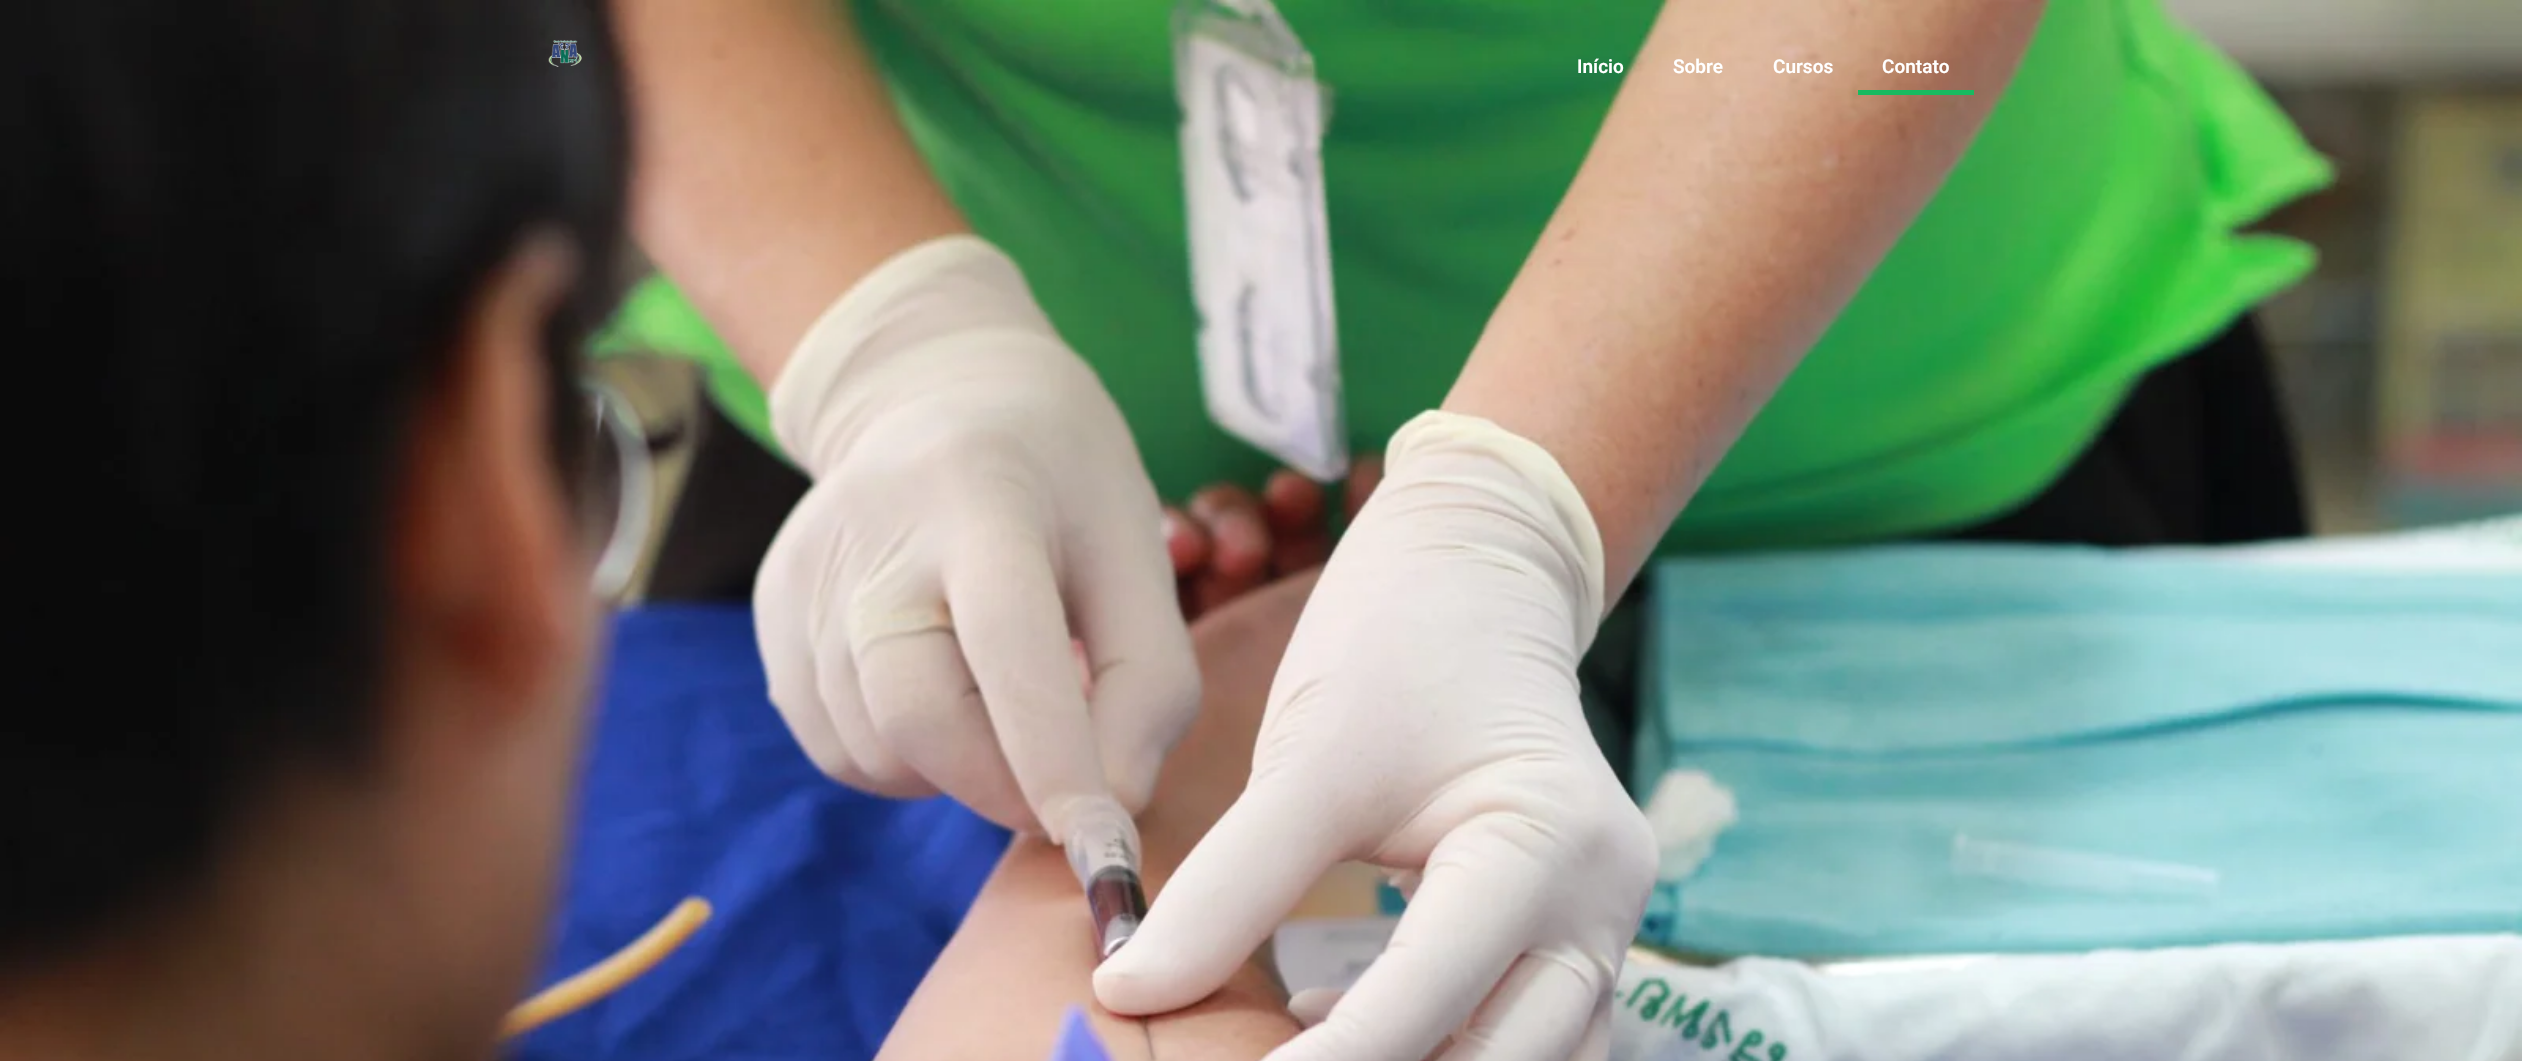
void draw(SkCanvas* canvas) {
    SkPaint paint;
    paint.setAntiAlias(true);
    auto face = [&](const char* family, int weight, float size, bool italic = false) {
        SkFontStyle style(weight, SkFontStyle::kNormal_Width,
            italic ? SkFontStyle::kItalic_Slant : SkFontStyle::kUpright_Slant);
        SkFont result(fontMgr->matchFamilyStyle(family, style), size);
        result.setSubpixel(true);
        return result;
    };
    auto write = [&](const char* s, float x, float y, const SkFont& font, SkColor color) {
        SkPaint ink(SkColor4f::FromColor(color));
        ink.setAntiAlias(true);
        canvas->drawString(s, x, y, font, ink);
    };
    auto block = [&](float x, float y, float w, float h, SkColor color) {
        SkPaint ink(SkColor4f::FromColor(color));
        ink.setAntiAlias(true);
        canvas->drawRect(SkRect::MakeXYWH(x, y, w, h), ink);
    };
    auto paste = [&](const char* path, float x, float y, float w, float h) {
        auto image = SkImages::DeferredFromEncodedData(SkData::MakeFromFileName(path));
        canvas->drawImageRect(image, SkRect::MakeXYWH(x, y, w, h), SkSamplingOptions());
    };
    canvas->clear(SK_ColorWHITE);
    paste("pic1.png", 0, 0, 2522, 1061);
    paste("pic2.png", 548, 40, 34, 27);
    auto kFont1 = face("Roboto", 600, 19);
    write("Início", 1577, 73, kFont1, SK_ColorWHITE);
    write("Sobre", 1673, 73, kFont1, SK_ColorWHITE);
    write("Cursos", 1773, 73, kFont1, SK_ColorWHITE);
    write("Contato", 1882, 73, kFont1, SK_ColorWHITE);
    block(1858, 90, 116, 5, SkColorSetRGB(24, 186, 96));
}
